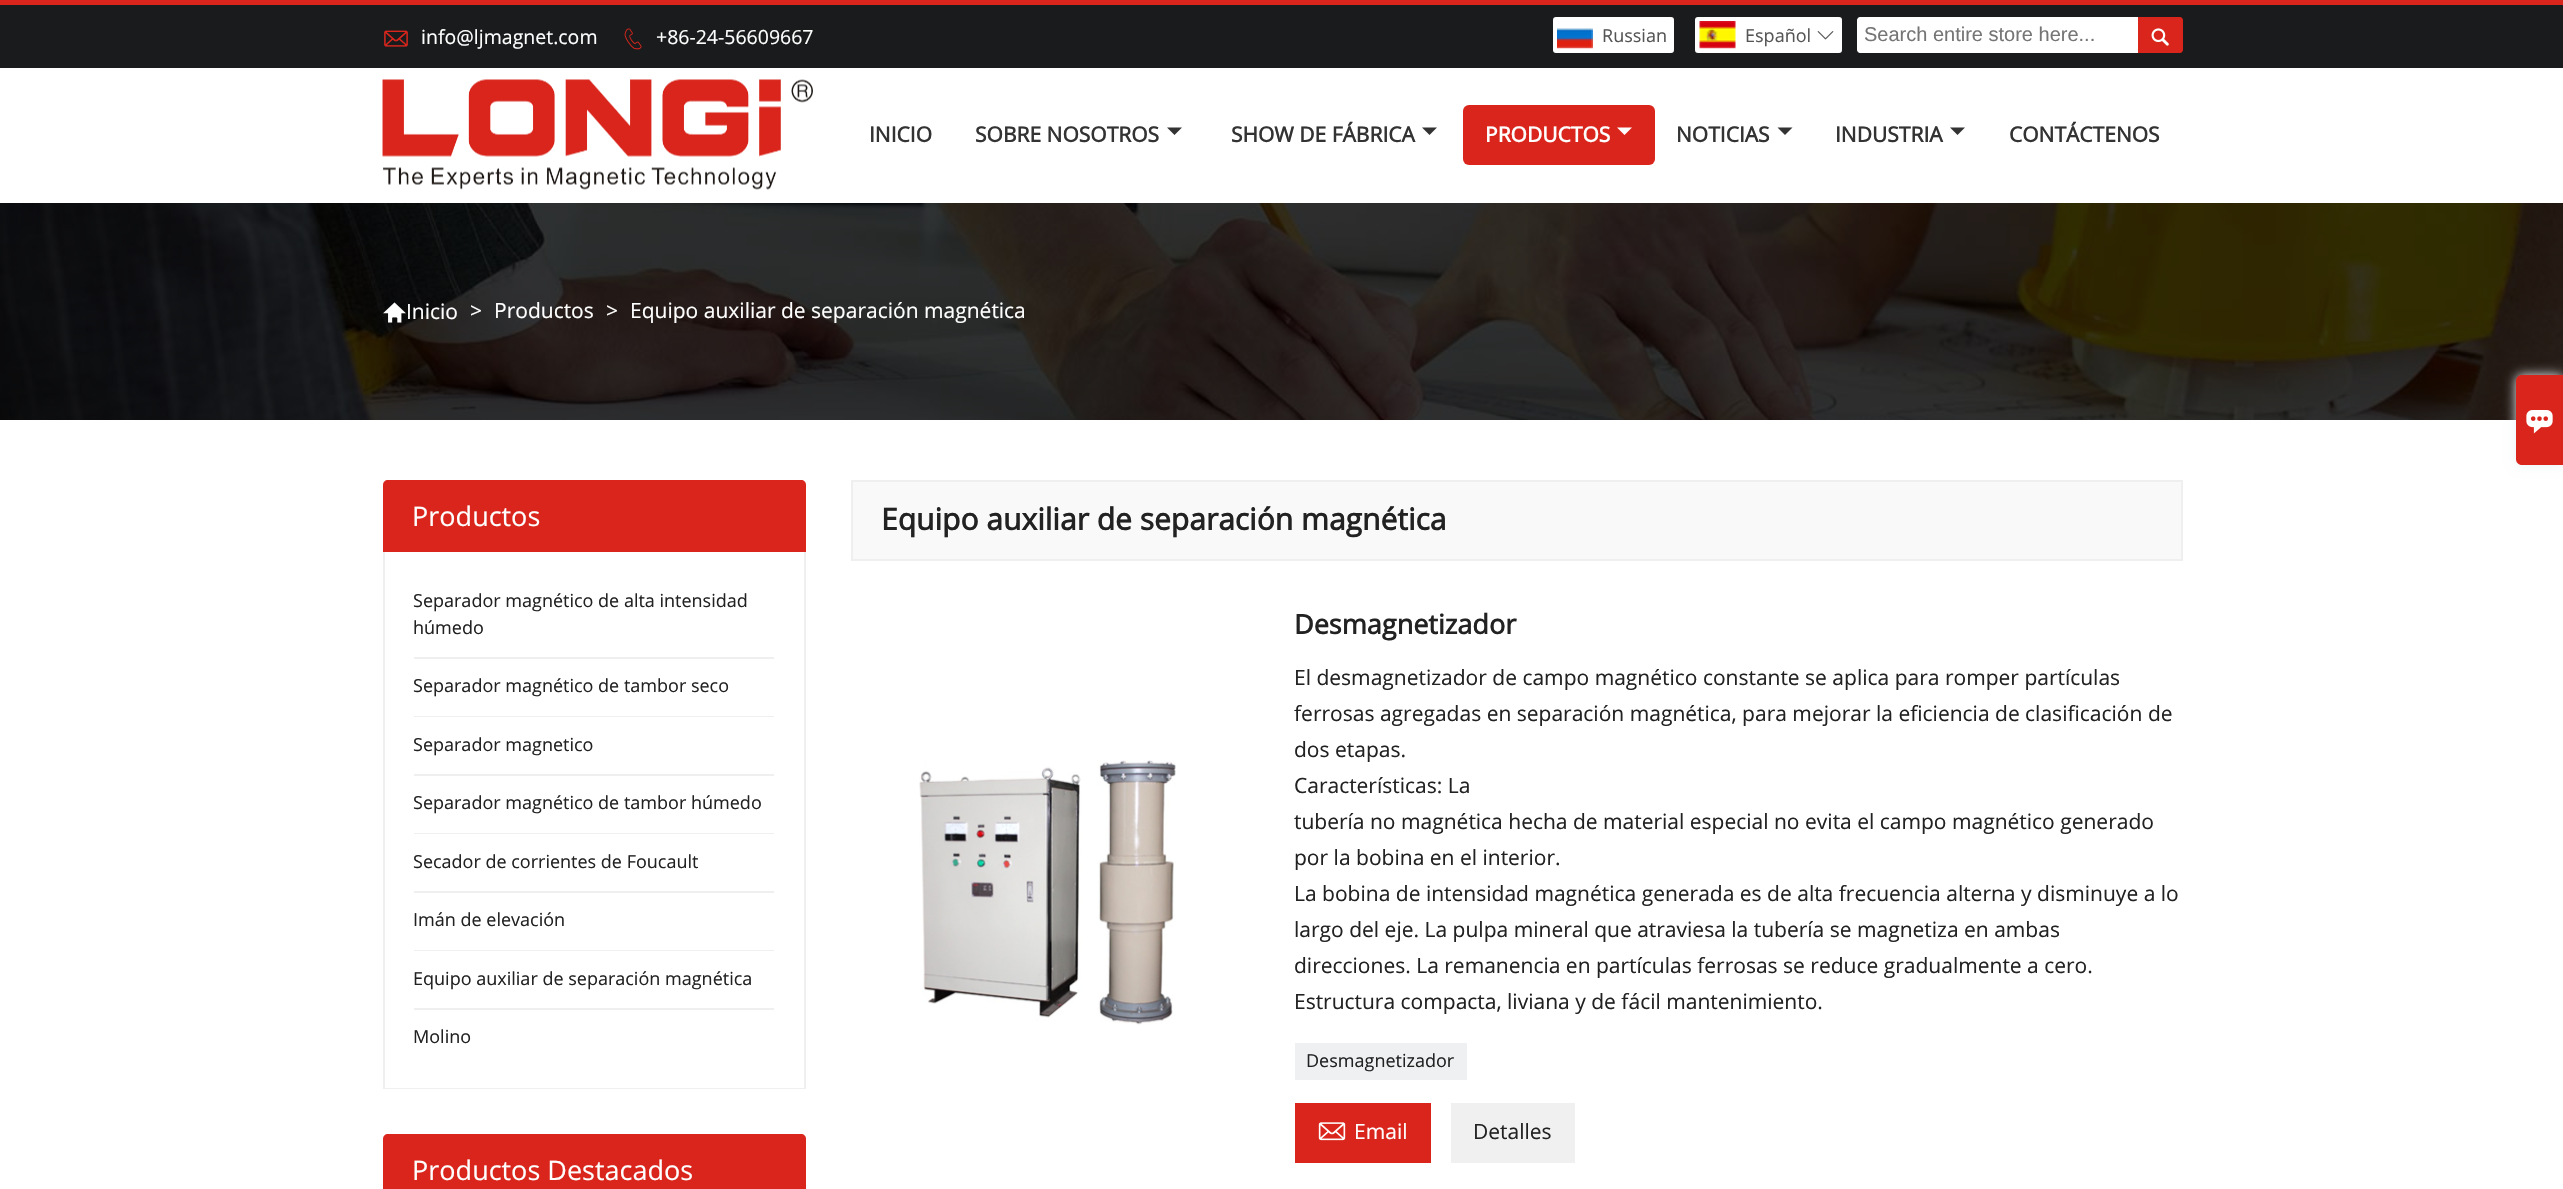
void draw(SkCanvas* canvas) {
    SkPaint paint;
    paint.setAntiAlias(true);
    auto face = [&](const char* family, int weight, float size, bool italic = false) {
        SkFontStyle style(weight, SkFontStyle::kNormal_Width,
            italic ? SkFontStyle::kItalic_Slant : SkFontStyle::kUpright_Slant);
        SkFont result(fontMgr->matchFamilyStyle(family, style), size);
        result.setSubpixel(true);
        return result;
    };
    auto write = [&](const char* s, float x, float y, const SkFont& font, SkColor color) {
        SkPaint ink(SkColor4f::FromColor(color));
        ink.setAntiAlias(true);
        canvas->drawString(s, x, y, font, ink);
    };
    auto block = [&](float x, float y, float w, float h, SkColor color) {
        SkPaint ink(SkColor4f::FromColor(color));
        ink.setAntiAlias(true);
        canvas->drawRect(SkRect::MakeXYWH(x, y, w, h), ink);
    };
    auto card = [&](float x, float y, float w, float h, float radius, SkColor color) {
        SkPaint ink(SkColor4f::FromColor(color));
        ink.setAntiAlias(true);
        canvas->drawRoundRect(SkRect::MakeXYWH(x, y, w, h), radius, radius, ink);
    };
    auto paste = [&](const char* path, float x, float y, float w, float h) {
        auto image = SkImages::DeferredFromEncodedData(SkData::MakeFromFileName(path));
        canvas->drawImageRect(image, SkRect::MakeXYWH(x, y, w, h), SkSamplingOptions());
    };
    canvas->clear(SK_ColorWHITE);
    block(0, 0, 2563, 5, SkColorSetRGB(218, 37, 28));
    block(0, 5, 2563, 63, SkColorSetRGB(25, 27, 28));
    paste("pic1.png", 384, 30, 24, 17);
    auto kFont1 = face("Open Sans", 400, 19.5f);
    write("info@ljmagnet.com", 421, 44, kFont1, SK_ColorWHITE);
    paste("pic2.png", 624, 28, 18, 22);
    write("+86-24-56609667", 656, 44, kFont1, SK_ColorWHITE);
    card(1553, 17, 121, 36, 3, SK_ColorWHITE);
    paste("pic3.png", 1557, 28, 36, 21);
    auto kFont2 = face("Open Sans", 400, 18);
    write("Russian", 1602, 42, kFont2, SkColorSetRGB(85, 85, 85));
    card(1695, 17, 147, 36, 3, SK_ColorWHITE);
    paste("pic4.png", 1699, 21, 37, 28);
    write("Español", 1745, 42, kFont2, SkColorSetRGB(85, 85, 85));
    paste("pic5.png", 1817, 31, 17, 9);
    paint.setColor(SK_ColorWHITE);
    canvas->drawPath(SkPathBuilder().moveTo(1860, 17).lineTo(2138, 17).lineTo(2138, 53).lineTo(1860, 53).cubicTo(1858.5f, 53, 1857, 51.5f, 1857, 50).lineTo(1857, 20).cubicTo(1857, 18.5f, 1858.5f, 17, 1860, 17).close().detach(), paint);
    auto kFont3 = face("Liberation Sans", 400, 20);
    write("Search entire store here...", 1864, 41, kFont3, SkColorSetRGB(117, 117, 117));
    paint.setColor(SkColorSetRGB(218, 37, 28));
    canvas->drawPath(SkPathBuilder().moveTo(2138, 17).lineTo(2180, 17).cubicTo(2181.5f, 17, 2183, 18.5f, 2183, 20).lineTo(2183, 50).cubicTo(2183, 51.5f, 2181.5f, 53, 2180, 53).lineTo(2138, 53).close().detach(), paint);
    paste("pic6.png", 2151, 28, 18, 18);
    paste("pic7.png", 382, 79, 431, 111);
    auto kFont4 = face("Open Sans", 700, 21);
    write("INICIO", 869, 142, kFont4, SkColorSetRGB(51, 51, 51));
    write("SOBRE NOSOTROS", 975, 142, kFont4, SkColorSetRGB(51, 51, 51));
    paint.setColor(SkColorSetRGB(51, 51, 51));
    canvas->drawPath(SkPathBuilder().moveTo(1167, 127.5f).lineTo(1182, 127.5f).lineTo(1174.5f, 135).close().detach(), paint);
    write("SHOW DE FÁBRICA", 1231, 142, kFont4, SkColorSetRGB(51, 51, 51));
    canvas->drawPath(SkPathBuilder().moveTo(1422, 127.5f).lineTo(1437, 127.5f).lineTo(1429.5f, 135).close().detach(), paint);
    card(1463, 105, 192, 60, 6, SkColorSetRGB(218, 37, 28));
    write("PRODUCTOS", 1485, 142, kFont4, SK_ColorWHITE);
    paint.setColor(SK_ColorWHITE);
    canvas->drawPath(SkPathBuilder().moveTo(1617, 127.5f).lineTo(1632, 127.5f).lineTo(1624.5f, 135).close().detach(), paint);
    write("NOTICIAS", 1676, 142, kFont4, SkColorSetRGB(51, 51, 51));
    paint.setColor(SkColorSetRGB(51, 51, 51));
    canvas->drawPath(SkPathBuilder().moveTo(1777.5f, 127.5f).lineTo(1792.5f, 127.5f).lineTo(1785, 135).close().detach(), paint);
    write("INDUSTRIA", 1835, 142, kFont4, SkColorSetRGB(51, 51, 51));
    canvas->drawPath(SkPathBuilder().moveTo(1950, 127.5f).lineTo(1965, 127.5f).lineTo(1957.5f, 135).close().detach(), paint);
    write("CONTÁCTENOS", 2009, 142, kFont4, SkColorSetRGB(51, 51, 51));
    paste("pic8.png", 0, 203, 2563, 217);
    paste("pic9.png", 383, 302, 23, 21);
    auto kFont5 = face("Open Sans", 400, 21);
    write("Inicio", 406, 319, kFont5, SK_ColorWHITE);
    write(">", 470, 318, kFont5, SK_ColorWHITE);
    write("Productos", 494, 318, kFont5, SK_ColorWHITE);
    write(">", 606, 318, kFont5, SK_ColorWHITE);
    write("Equipo auxiliar de separación magnética", 630, 318, kFont5, SK_ColorWHITE);
    paint.setColor(SkColorSetRGB(218, 37, 28));
    canvas->drawPath(SkPathBuilder().moveTo(388, 480).lineTo(801, 480).cubicTo(804, 480, 806, 482, 806, 485).lineTo(806, 552).lineTo(383, 552).lineTo(383, 485).cubicTo(383, 482, 385, 480, 388, 480).close().detach(), paint);
    auto kFont6 = face("Open Sans", 400, 27);
    write("Productos", 412, 526, kFont6, SK_ColorWHITE);
    block(804, 552, 2, 537, SkColorSetRGB(239, 239, 239));
    block(383, 1088, 423, 1, SkColorSetRGB(239, 239, 239));
    block(383, 552, 2, 537, SkColorSetRGB(239, 239, 239));
    block(414, 657, 360, 2, SkColorSetRGB(239, 239, 239));
    write("Separador magnético de alta intensidad", 413, 607, kFont2, SkColorSetRGB(34, 34, 34));
    write("húmedo", 413, 634, kFont2, SkColorSetRGB(34, 34, 34));
    block(414, 716, 360, 1, SkColorSetRGB(239, 239, 239));
    write("Separador magnético de tambor seco", 413, 692, kFont2, SkColorSetRGB(34, 34, 34));
    block(414, 774, 360, 2, SkColorSetRGB(239, 239, 239));
    write("Separador magnetico", 413, 751, kFont2, SkColorSetRGB(34, 34, 34));
    block(414, 833, 360, 1, SkColorSetRGB(239, 239, 239));
    write("Separador magnético de tambor húmedo", 413, 809, kFont2, SkColorSetRGB(34, 34, 34));
    block(414, 891, 360, 2, SkColorSetRGB(239, 239, 239));
    write("Secador de corrientes de Foucault", 413, 868, kFont2, SkColorSetRGB(34, 34, 34));
    block(414, 950, 360, 1, SkColorSetRGB(239, 239, 239));
    write("Imán de elevación", 413, 926, kFont2, SkColorSetRGB(34, 34, 34));
    block(414, 1008, 360, 2, SkColorSetRGB(239, 239, 239));
    write("Equipo auxiliar de separación magnética", 413, 985, kFont2, SkColorSetRGB(34, 34, 34));
    write("Molino", 413, 1043, kFont2, SkColorSetRGB(34, 34, 34));
    canvas->drawPath(SkPathBuilder().moveTo(388, 1134).lineTo(801, 1134).cubicTo(804, 1134, 806, 1136, 806, 1139).lineTo(806, 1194).lineTo(383, 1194).lineTo(383, 1139).cubicTo(383, 1136, 385, 1134, 388, 1134).close().detach(), paint);
    write("Productos Destacados", 412, 1180, kFont6, SK_ColorWHITE);
    paint.setColor(SkColorSetRGB(249, 249, 249));
    canvas->drawRect(SkRect::MakeXYWH(852, 481, 1330, 79), paint);
    paint.setStyle(SkPaint::kStroke_Style);
    paint.setStrokeWidth(2);
    paint.setColor(SkColorSetRGB(239, 239, 239));
    canvas->drawRect(SkRect::MakeXYWH(852, 481, 1330, 79), paint);
    auto kFont7 = face("Open Sans", 700, 30);
    write("Equipo auxiliar de separación magnética", 881, 530, kFont7, SkColorSetRGB(34, 34, 34));
    paste("pic10.png", 919, 760, 257, 265);
    auto kFont8 = face("Open Sans", 700, 27);
    write("Desmagnetizador", 1294, 634, kFont8, SkColorSetRGB(34, 34, 34));
    write("El desmagnetizador de campo magnético constante se aplica para romper partículas", 1294, 685, kFont5, SkColorSetRGB(34, 34, 34));
    write("ferrosas agregadas en separación magnética, para mejorar la eficiencia de clasificación de", 1294, 721, kFont5, SkColorSetRGB(34, 34, 34));
    write("dos etapas.", 1294, 757, kFont5, SkColorSetRGB(34, 34, 34));
    write("Características: La", 1294, 793, kFont5, SkColorSetRGB(34, 34, 34));
    write("tubería no magnética hecha de material especial no evita el campo magnético generado", 1294, 829, kFont5, SkColorSetRGB(34, 34, 34));
    write("por la bobina en el interior.", 1294, 865, kFont5, SkColorSetRGB(34, 34, 34));
    write("La bobina de intensidad magnética generada es de alta frecuencia alterna y disminuye a lo", 1294, 901, kFont5, SkColorSetRGB(34, 34, 34));
    write("largo del eje. La pulpa mineral que atraviesa la tubería se magnetiza en ambas", 1294, 937, kFont5, SkColorSetRGB(34, 34, 34));
    write("direcciones. La remanencia en partículas ferrosas se reduce gradualmente a cero.", 1294, 973, kFont5, SkColorSetRGB(34, 34, 34));
    write("Estructura compacta, liviana y de fácil mantenimiento.", 1294, 1009, kFont5, SkColorSetRGB(34, 34, 34));
    block(1295, 1043, 172, 37, SkColorSetRGB(238, 240, 241));
    write("Desmagnetizador", 1306, 1067, kFont2, SkColorSetRGB(34, 34, 34));
    block(1295, 1103, 136, 60, SkColorSetRGB(218, 37, 28));
    paste("pic11.png", 1318, 1122, 28, 19);
    write("Email", 1354, 1139, kFont5, SK_ColorWHITE);
    block(1451, 1103, 124, 60, SkColorSetRGB(240, 240, 240));
    write("Detalles", 1473, 1139, kFont5, SkColorSetRGB(34, 34, 34));
    paint.setStyle(SkPaint::kFill_Style);
    paint.setColor(SkColorSetRGB(234, 240, 246));
    paint.setMaskFilter(SkMaskFilter::MakeBlur(kNormal_SkBlurStyle, 6));
    canvas->drawRoundRect(SkRect::MakeXYWH(2516, 375, 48, 90), 6, 6, paint);
    paint.setMaskFilter(nullptr);
    paint.setColor(SkColorSetRGB(218, 37, 28));
    canvas->drawPath(SkPathBuilder().moveTo(2522, 375).lineTo(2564, 375).lineTo(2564, 465).lineTo(2522, 465).cubicTo(2518.5f, 465, 2516, 462.5f, 2516, 459).lineTo(2516, 381).cubicTo(2516, 377.5f, 2518.5f, 375, 2522, 375).close().detach(), paint);
    paste("pic12.png", 2526, 410, 27, 24);
}
